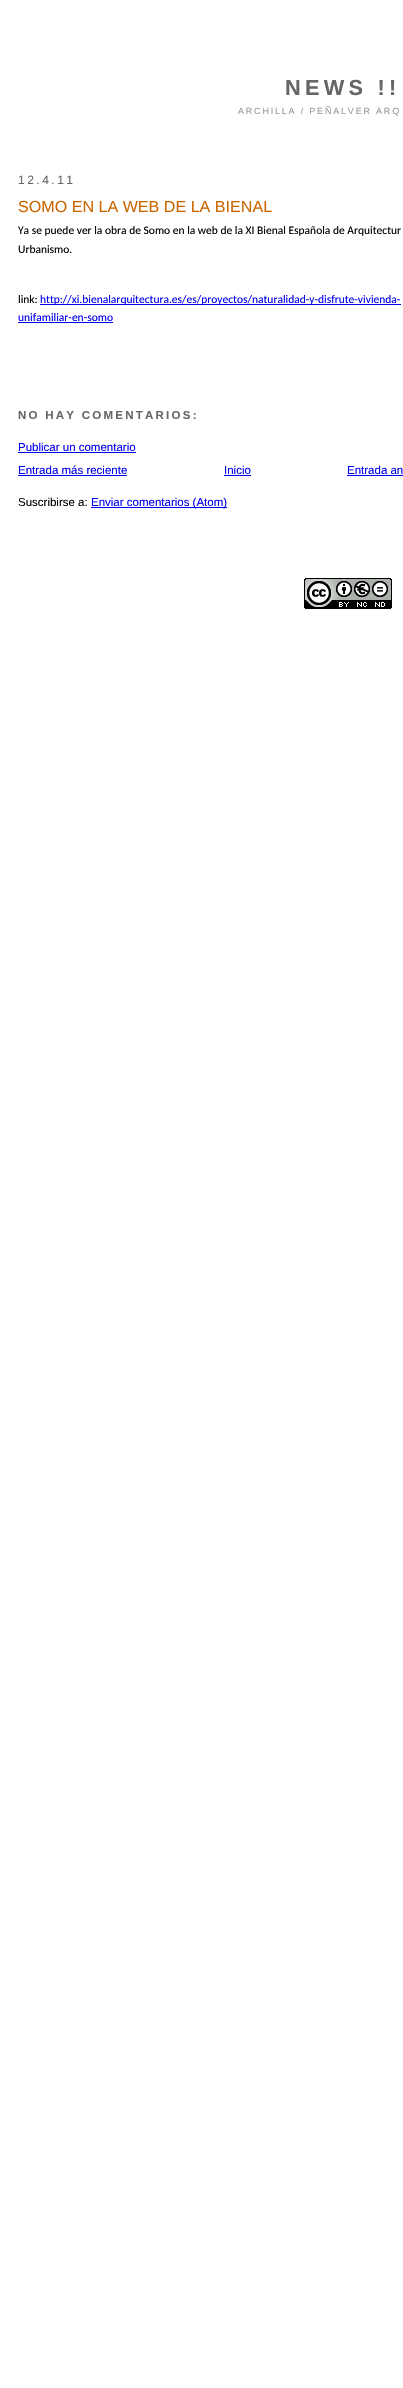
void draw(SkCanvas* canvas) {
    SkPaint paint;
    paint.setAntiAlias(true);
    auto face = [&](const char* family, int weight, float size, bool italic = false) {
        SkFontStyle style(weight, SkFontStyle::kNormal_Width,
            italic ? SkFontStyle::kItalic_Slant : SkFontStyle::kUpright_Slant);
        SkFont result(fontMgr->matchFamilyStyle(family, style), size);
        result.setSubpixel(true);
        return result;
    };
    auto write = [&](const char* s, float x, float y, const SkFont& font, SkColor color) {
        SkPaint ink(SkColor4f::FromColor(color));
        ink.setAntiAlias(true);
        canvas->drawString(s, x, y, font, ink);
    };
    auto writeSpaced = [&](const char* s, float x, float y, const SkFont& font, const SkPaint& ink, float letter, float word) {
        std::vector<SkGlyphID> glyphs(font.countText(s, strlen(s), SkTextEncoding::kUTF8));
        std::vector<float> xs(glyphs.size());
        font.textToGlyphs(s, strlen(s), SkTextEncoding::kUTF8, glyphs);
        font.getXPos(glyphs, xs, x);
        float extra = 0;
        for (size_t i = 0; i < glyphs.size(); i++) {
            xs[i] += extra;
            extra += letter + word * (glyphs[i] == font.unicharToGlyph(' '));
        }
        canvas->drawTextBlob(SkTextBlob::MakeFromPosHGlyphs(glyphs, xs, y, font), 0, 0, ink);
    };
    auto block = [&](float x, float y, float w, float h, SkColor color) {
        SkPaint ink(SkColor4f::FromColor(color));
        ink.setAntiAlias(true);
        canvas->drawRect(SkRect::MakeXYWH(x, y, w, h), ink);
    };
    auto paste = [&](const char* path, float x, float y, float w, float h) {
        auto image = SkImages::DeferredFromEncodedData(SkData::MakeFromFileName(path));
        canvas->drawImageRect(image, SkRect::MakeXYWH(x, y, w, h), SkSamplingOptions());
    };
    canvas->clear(SK_ColorWHITE);
    auto kFont1 = face("Liberation Sans", 700, 21.75f);
    paint.setColor(SkColorSetRGB(102, 102, 102));
    writeSpaced("NEWS !!", 285, 95, kFont1, paint, 4.25f, 0);
    auto kFont2 = face("Liberation Sans", 400, 9);
    paint.setColor(SkColorSetRGB(153, 153, 153));
    writeSpaced("ARCHILLA / PEÑALVER ARQ", 238, 114, kFont2, paint, 1.8f, 0);
    auto kFont3 = face("Liberation Sans", 400, 12);
    paint.setColor(SkColorSetRGB(102, 102, 102));
    writeSpaced("12.4.11", 18, 184, kFont3, paint, 2.5f, 0);
    auto kFont4 = face("Liberation Sans", 400, 16.1f);
    write("SOMO EN LA WEB DE LA BIENAL", 18, 212, kFont4, SkColorSetRGB(204, 102, 0));
    auto kFont5 = face("Carlito", 400, 11.5f);
    write("Ya se puede ver la obra de Somo en la web de la XI Bienal Española de Arquitectur", 18, 234, kFont5, SK_ColorBLACK);
    write("Urbanismo.", 18, 253, kFont5, SK_ColorBLACK);
    write("link:", 18, 303, kFont5, SK_ColorBLACK);
    block(40, 304, 361, 1, SkColorSetRGB(0, 0, 238));
    write("http://xi.bienalarquitectura.es/es/proyectos/naturalidad-y-disfrute-vivienda-", 40, 303, kFont5, SkColorSetRGB(0, 0, 238));
    write("unifamiliar-en-somo", 18, 321, kFont5, SkColorSetRGB(0, 0, 238));
    block(18, 322, 95, 1, SkColorSetRGB(0, 0, 238));
    auto kFont6 = face("Liberation Sans", 700, 11.5f);
    writeSpaced("NO HAY COMENTARIOS:", 18, 419, kFont6, paint, 2.25f, 0);
    auto kFont7 = face("Liberation Sans", 400, 11.5f);
    write("Publicar un comentario", 18, 451, kFont7, SkColorSetRGB(0, 0, 238));
    block(18, 452, 118, 1, SkColorSetRGB(0, 0, 238));
    write("Entrada más reciente", 18, 474, kFont7, SkColorSetRGB(0, 0, 238));
    block(18, 475, 109, 1, SkColorSetRGB(0, 0, 238));
    write("Inicio", 224, 474, kFont7, SkColorSetRGB(0, 0, 238));
    block(224, 475, 27, 1, SkColorSetRGB(0, 0, 238));
    write("Entrada an", 347, 474, kFont7, SkColorSetRGB(0, 0, 238));
    block(347, 475, 56, 1, SkColorSetRGB(0, 0, 238));
    write("Suscribirse a:", 18, 506, kFont7, SK_ColorBLACK);
    block(91, 507, 136, 1, SkColorSetRGB(0, 0, 238));
    write("Enviar comentarios (Atom)", 91, 506, kFont7, SkColorSetRGB(0, 0, 238));
    paste("pic1.png", 304, 578, 88, 31);
}
